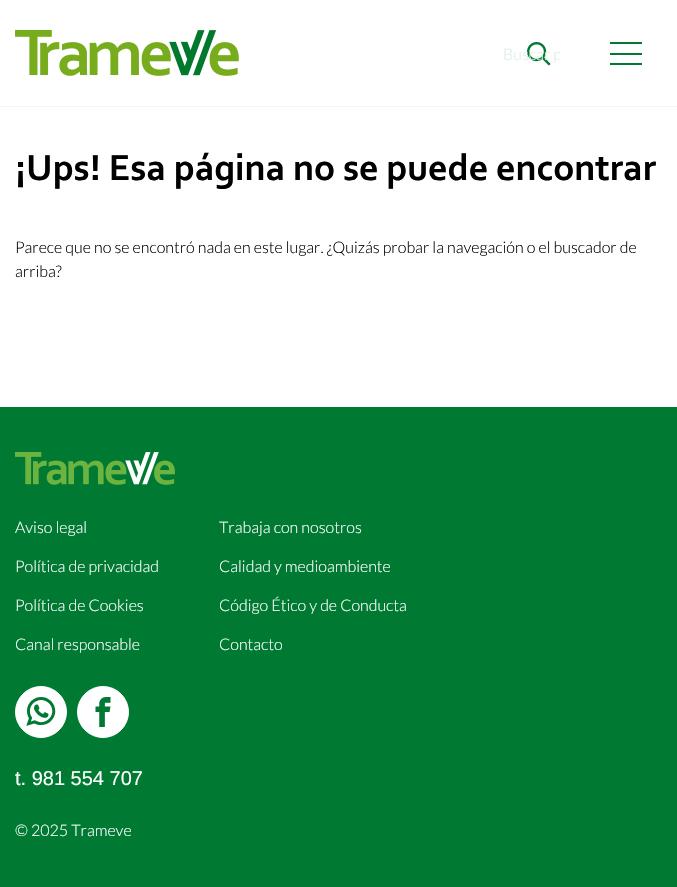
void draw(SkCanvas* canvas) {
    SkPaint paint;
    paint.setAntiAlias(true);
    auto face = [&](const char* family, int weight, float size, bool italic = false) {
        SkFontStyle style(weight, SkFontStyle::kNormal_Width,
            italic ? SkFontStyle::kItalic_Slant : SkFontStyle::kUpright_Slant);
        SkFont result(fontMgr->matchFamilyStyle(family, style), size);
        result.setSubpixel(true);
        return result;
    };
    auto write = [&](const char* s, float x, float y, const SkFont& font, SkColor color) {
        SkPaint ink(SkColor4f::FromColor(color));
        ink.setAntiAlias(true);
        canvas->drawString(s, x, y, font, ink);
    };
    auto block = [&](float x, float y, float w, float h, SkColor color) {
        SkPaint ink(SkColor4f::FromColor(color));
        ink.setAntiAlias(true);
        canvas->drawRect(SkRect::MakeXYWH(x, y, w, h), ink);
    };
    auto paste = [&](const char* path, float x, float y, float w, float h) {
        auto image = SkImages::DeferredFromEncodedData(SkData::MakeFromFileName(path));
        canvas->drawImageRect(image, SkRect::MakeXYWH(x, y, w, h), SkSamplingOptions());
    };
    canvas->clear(SK_ColorWHITE);
    block(0, 106, 677, 1, SkColorSetRGB(245, 245, 247));
    paste("pic1.png", 15, 30, 224, 46);
    paste("pic2.png", 527, 42, 24, 24);
    canvas->save();
    canvas->clipRect(SkRect::MakeXYWH(503, 44, 57, 19));
    auto kFont1 = face("Lato", 300, 16);
    write("Buscar p", 503, 60, kFont1, SkColorSetRGB(222, 238, 229));
    canvas->restore();
    block(610, 42, 32, 2, SkColorSetRGB(0, 122, 51));
    block(610, 53, 32, 2, SkColorSetRGB(0, 122, 51));
    block(610, 63, 32, 2, SkColorSetRGB(0, 122, 51));
    auto kFont2 = face("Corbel", 700, 38);
    write("¡Ups! Esa página no se puede encontrar", 15, 180, kFont2, SK_ColorBLACK);
    write("Parece que no se encontró nada en este lugar. ¿Quizás probar la navegación o el buscador de", 15, 253, kFont1, SK_ColorBLACK);
    write("arriba?", 15, 277, kFont1, SK_ColorBLACK);
    block(0, 407, 677, 480, SkColorSetRGB(0, 122, 51));
    paste("pic3.png", 15, 452, 160, 33);
    write("Aviso legal", 15, 533, kFont1, SK_ColorWHITE);
    write("Política de privacidad", 15, 572, kFont1, SK_ColorWHITE);
    write("Política de Cookies", 15, 611, kFont1, SK_ColorWHITE);
    write("Canal responsable", 15, 650, kFont1, SK_ColorWHITE);
    write("Trabaja con nosotros", 219, 533, kFont1, SK_ColorWHITE);
    write("Calidad y medioambiente", 219, 572, kFont1, SK_ColorWHITE);
    write("Código Ético y de Conducta", 219, 611, kFont1, SK_ColorWHITE);
    write("Contacto", 219, 650, kFont1, SK_ColorWHITE);
    paint.setColor(SK_ColorWHITE);
    canvas->drawCircle(41, 712, 25.5f, paint);
    paint.setStyle(SkPaint::kStroke_Style);
    paint.setStrokeWidth(1);
    canvas->drawCircle(41, 712, 25.5f, paint);
    paste("pic4.png", 26, 697, 30, 29);
    paint.setStyle(SkPaint::kFill_Style);
    canvas->drawCircle(103, 712, 25.5f, paint);
    paint.setStyle(SkPaint::kStroke_Style);
    canvas->drawCircle(103, 712, 25.5f, paint);
    paste("pic5.png", 95, 697, 16, 30);
    auto kFont3 = face("Liberation Sans", 400, 20);
    write("t. 981 554 707", 15, 785, kFont3, SK_ColorWHITE);
    write("© 2025 Trameve", 15, 836, kFont1, SK_ColorWHITE);
}
